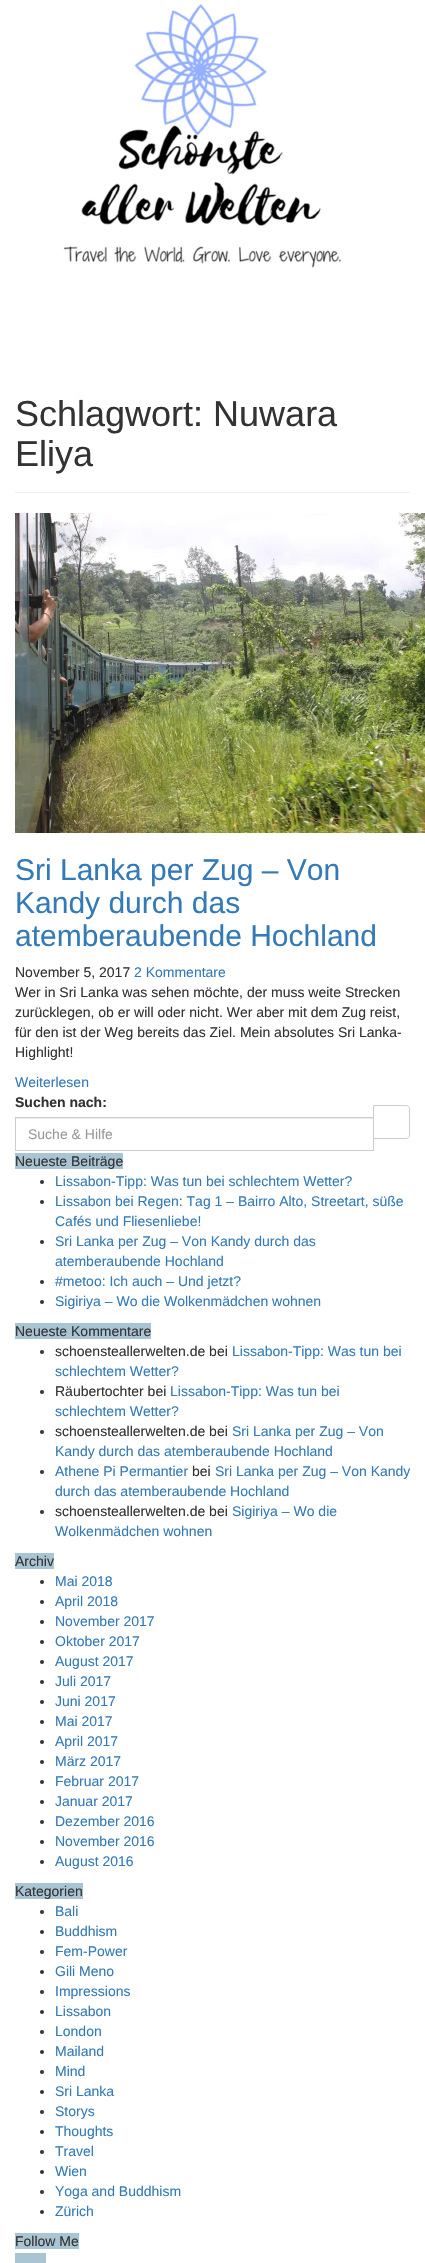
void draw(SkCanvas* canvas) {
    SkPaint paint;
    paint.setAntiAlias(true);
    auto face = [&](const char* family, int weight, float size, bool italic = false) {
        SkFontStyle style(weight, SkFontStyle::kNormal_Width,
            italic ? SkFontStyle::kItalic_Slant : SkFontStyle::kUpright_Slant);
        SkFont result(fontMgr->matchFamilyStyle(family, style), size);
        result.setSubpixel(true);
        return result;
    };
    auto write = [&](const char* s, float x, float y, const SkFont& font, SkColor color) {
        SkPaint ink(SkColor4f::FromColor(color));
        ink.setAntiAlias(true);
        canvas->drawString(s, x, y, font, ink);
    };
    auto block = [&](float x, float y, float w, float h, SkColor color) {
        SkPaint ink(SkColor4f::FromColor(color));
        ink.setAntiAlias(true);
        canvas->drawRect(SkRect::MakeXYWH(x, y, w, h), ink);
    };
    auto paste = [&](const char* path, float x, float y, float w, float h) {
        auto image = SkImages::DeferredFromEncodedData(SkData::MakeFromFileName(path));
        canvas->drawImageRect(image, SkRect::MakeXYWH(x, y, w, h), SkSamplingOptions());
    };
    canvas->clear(SK_ColorWHITE);
    paste("pic1.png", 63, 4, 278, 264);
    block(15, 492, 395, 1, SkColorSetRGB(238, 238, 238));
    auto kFont1 = face("Liberation Sans", 400, 36);
    write("Schlagwort: Nuwara", 15, 426, kFont1, SkColorSetRGB(51, 51, 51));
    write("Eliya", 15, 466, kFont1, SkColorSetRGB(51, 51, 51));
    paste("pic2.png", 15, 513, 410, 320);
    auto kFont2 = face("Liberation Sans", 400, 30);
    write("Sri Lanka per Zug – Von", 15, 880, kFont2, SkColorSetRGB(51, 122, 183));
    write("Kandy durch das", 15, 913, kFont2, SkColorSetRGB(51, 122, 183));
    write("atemberaubende Hochland", 15, 946, kFont2, SkColorSetRGB(51, 122, 183));
    auto kFont3 = face("Liberation Sans", 400, 14);
    write("November 5, 2017", 15, 977, kFont3, SkColorSetRGB(51, 51, 51));
    write("2 Kommentare", 134, 977, kFont3, SkColorSetRGB(51, 122, 183));
    write("Wer in Sri Lanka was sehen möchte, der muss weite Strecken", 15, 997, kFont3, SkColorSetRGB(51, 51, 51));
    write("zurücklegen, ob er will oder nicht. Wer aber mit dem Zug reist,", 15, 1017, kFont3, SkColorSetRGB(51, 51, 51));
    write("für den ist der Weg bereits das Ziel. Mein absolutes Sri Lanka-", 15, 1037, kFont3, SkColorSetRGB(51, 51, 51));
    write("Highlight!", 15, 1057, kFont3, SkColorSetRGB(51, 51, 51));
    write("Weiterlesen", 15, 1087, kFont3, SkColorSetRGB(51, 122, 183));
    auto kFont4 = face("Liberation Sans", 700, 14);
    write("Suchen nach:", 15, 1107, kFont4, SkColorSetRGB(51, 51, 51));
    block(16, 1118, 357, 1, SkColorSetRGB(236, 236, 236));
    paint.setStyle(SkPaint::kStroke_Style);
    paint.setStrokeWidth(1);
    paint.setColor(SkColorSetRGB(204, 204, 204));
    canvas->drawRect(SkRect::MakeXYWH(15.5f, 1117.5f, 358, 33), paint);
    write("Suche & Hilfe", 28, 1139, kFont3, SkColorSetRGB(153, 153, 153));
    paint.setStyle(SkPaint::kFill_Style);
    paint.setColor(SK_ColorWHITE);
    canvas->drawPath(SkPathBuilder().moveTo(373.5f, 1105.5f).lineTo(406, 1105.5f).cubicTo(408, 1105.5f, 409.5f, 1107, 409.5f, 1109).lineTo(409.5f, 1135).cubicTo(409.5f, 1137, 408, 1138.5f, 406, 1138.5f).lineTo(373.5f, 1138.5f).close().detach(), paint);
    paint.setStyle(SkPaint::kStroke_Style);
    paint.setColor(SkColorSetRGB(204, 204, 204));
    canvas->drawPath(SkPathBuilder().moveTo(373.5f, 1105.5f).lineTo(406, 1105.5f).cubicTo(408, 1105.5f, 409.5f, 1107, 409.5f, 1109).lineTo(409.5f, 1135).cubicTo(409.5f, 1137, 408, 1138.5f, 406, 1138.5f).lineTo(373.5f, 1138.5f).close().detach(), paint);
    block(15, 1153, 108, 16, SkColorSetRGB(169, 196, 211));
    write("Neueste Beiträge", 15, 1166, kFont3, SkColorSetRGB(51, 51, 51));
    paint.setStyle(SkPaint::kFill_Style);
    paint.setColor(SkColorSetRGB(51, 51, 51));
    canvas->drawCircle(42, 1182, 2, paint);
    write("Lissabon-Tipp: Was tun bei schlechtem Wetter?", 55, 1186, kFont3, SkColorSetRGB(51, 122, 183));
    canvas->drawCircle(42, 1202, 2, paint);
    write("Lissabon bei Regen: Tag 1 – Bairro Alto, Streetart, süße", 55, 1206, kFont3, SkColorSetRGB(51, 122, 183));
    write("Cafés und Fliesenliebe!", 55, 1226, kFont3, SkColorSetRGB(51, 122, 183));
    canvas->drawCircle(42, 1242, 2, paint);
    write("Sri Lanka per Zug – Von Kandy durch das", 55, 1246, kFont3, SkColorSetRGB(51, 122, 183));
    write("atemberaubende Hochland", 55, 1266, kFont3, SkColorSetRGB(51, 122, 183));
    canvas->drawCircle(42, 1282, 2, paint);
    write("#metoo: Ich auch – Und jetzt?", 55, 1286, kFont3, SkColorSetRGB(51, 122, 183));
    canvas->drawCircle(42, 1302, 2, paint);
    write("Sigiriya – Wo die Wolkenmädchen wohnen", 55, 1306, kFont3, SkColorSetRGB(51, 122, 183));
    block(15, 1323, 136, 16, SkColorSetRGB(169, 196, 211));
    write("Neueste Kommentare", 15, 1336, kFont3, SkColorSetRGB(51, 51, 51));
    canvas->drawCircle(42, 1352, 2, paint);
    write("schoensteallerwelten.de bei", 55, 1356, kFont3, SkColorSetRGB(51, 51, 51));
    write("Lissabon-Tipp: Was tun bei", 232, 1356, kFont3, SkColorSetRGB(51, 122, 183));
    write("schlechtem Wetter?", 55, 1376, kFont3, SkColorSetRGB(51, 122, 183));
    canvas->drawCircle(42, 1392, 2, paint);
    write("Räubertochter bei", 55, 1396, kFont3, SkColorSetRGB(51, 51, 51));
    write("Lissabon-Tipp: Was tun bei", 170, 1396, kFont3, SkColorSetRGB(51, 122, 183));
    write("schlechtem Wetter?", 55, 1416, kFont3, SkColorSetRGB(51, 122, 183));
    canvas->drawCircle(42, 1432, 2, paint);
    write("schoensteallerwelten.de bei", 55, 1436, kFont3, SkColorSetRGB(51, 51, 51));
    write("Sri Lanka per Zug – Von", 232, 1436, kFont3, SkColorSetRGB(51, 122, 183));
    write("Kandy durch das atemberaubende Hochland", 55, 1456, kFont3, SkColorSetRGB(51, 122, 183));
    canvas->drawCircle(42, 1472, 2, paint);
    write("Athene Pi Permantier", 55, 1476, kFont3, SkColorSetRGB(51, 122, 183));
    write("bei", 192, 1476, kFont3, SkColorSetRGB(51, 51, 51));
    write("Sri Lanka per Zug – Von Kandy", 215, 1476, kFont3, SkColorSetRGB(51, 122, 183));
    write("durch das atemberaubende Hochland", 55, 1496, kFont3, SkColorSetRGB(51, 122, 183));
    canvas->drawCircle(42, 1512, 2, paint);
    write("schoensteallerwelten.de bei", 55, 1516, kFont3, SkColorSetRGB(51, 51, 51));
    write("Sigiriya – Wo die", 232, 1516, kFont3, SkColorSetRGB(51, 122, 183));
    write("Wolkenmädchen wohnen", 55, 1536, kFont3, SkColorSetRGB(51, 122, 183));
    block(15, 1553, 39, 16, SkColorSetRGB(169, 196, 211));
    write("Archiv", 15, 1566, kFont3, SkColorSetRGB(51, 51, 51));
    canvas->drawCircle(42, 1582, 2, paint);
    write("Mai 2018", 55, 1586, kFont3, SkColorSetRGB(51, 122, 183));
    canvas->drawCircle(42, 1602, 2, paint);
    write("April 2018", 55, 1606, kFont3, SkColorSetRGB(51, 122, 183));
    canvas->drawCircle(42, 1622, 2, paint);
    write("November 2017", 55, 1626, kFont3, SkColorSetRGB(51, 122, 183));
    canvas->drawCircle(42, 1642, 2, paint);
    write("Oktober 2017", 55, 1646, kFont3, SkColorSetRGB(51, 122, 183));
    canvas->drawCircle(42, 1662, 2, paint);
    write("August 2017", 55, 1666, kFont3, SkColorSetRGB(51, 122, 183));
    canvas->drawCircle(42, 1682, 2, paint);
    write("Juli 2017", 55, 1686, kFont3, SkColorSetRGB(51, 122, 183));
    canvas->drawCircle(42, 1702, 2, paint);
    write("Juni 2017", 55, 1706, kFont3, SkColorSetRGB(51, 122, 183));
    canvas->drawCircle(42, 1722, 2, paint);
    write("Mai 2017", 55, 1726, kFont3, SkColorSetRGB(51, 122, 183));
    canvas->drawCircle(42, 1742, 2, paint);
    write("April 2017", 55, 1746, kFont3, SkColorSetRGB(51, 122, 183));
    canvas->drawCircle(42, 1762, 2, paint);
    write("März 2017", 55, 1766, kFont3, SkColorSetRGB(51, 122, 183));
    canvas->drawCircle(42, 1782, 2, paint);
    write("Februar 2017", 55, 1786, kFont3, SkColorSetRGB(51, 122, 183));
    canvas->drawCircle(42, 1802, 2, paint);
    write("Januar 2017", 55, 1806, kFont3, SkColorSetRGB(51, 122, 183));
    canvas->drawCircle(42, 1822, 2, paint);
    write("Dezember 2016", 55, 1826, kFont3, SkColorSetRGB(51, 122, 183));
    canvas->drawCircle(42, 1842, 2, paint);
    write("November 2016", 55, 1846, kFont3, SkColorSetRGB(51, 122, 183));
    canvas->drawCircle(42, 1862, 2, paint);
    write("August 2016", 55, 1866, kFont3, SkColorSetRGB(51, 122, 183));
    block(15, 1883, 68, 16, SkColorSetRGB(169, 196, 211));
    write("Kategorien", 15, 1896, kFont3, SkColorSetRGB(51, 51, 51));
    canvas->drawCircle(42, 1912, 2, paint);
    write("Bali", 55, 1916, kFont3, SkColorSetRGB(51, 122, 183));
    canvas->drawCircle(42, 1932, 2, paint);
    write("Buddhism", 55, 1936, kFont3, SkColorSetRGB(51, 122, 183));
    canvas->drawCircle(42, 1952, 2, paint);
    write("Fem-Power", 55, 1956, kFont3, SkColorSetRGB(51, 122, 183));
    canvas->drawCircle(42, 1972, 2, paint);
    write("Gili Meno", 55, 1976, kFont3, SkColorSetRGB(51, 122, 183));
    canvas->drawCircle(42, 1992, 2, paint);
    write("Impressions", 55, 1996, kFont3, SkColorSetRGB(51, 122, 183));
    canvas->drawCircle(42, 2012, 2, paint);
    write("Lissabon", 55, 2016, kFont3, SkColorSetRGB(51, 122, 183));
    canvas->drawCircle(42, 2032, 2, paint);
    write("London", 55, 2036, kFont3, SkColorSetRGB(51, 122, 183));
    canvas->drawCircle(42, 2052, 2, paint);
    write("Mailand", 55, 2056, kFont3, SkColorSetRGB(51, 122, 183));
    canvas->drawCircle(42, 2072, 2, paint);
    write("Mind", 55, 2076, kFont3, SkColorSetRGB(51, 122, 183));
    canvas->drawCircle(42, 2092, 2, paint);
    write("Sri Lanka", 55, 2096, kFont3, SkColorSetRGB(51, 122, 183));
    canvas->drawCircle(42, 2112, 2, paint);
    write("Storys", 55, 2116, kFont3, SkColorSetRGB(51, 122, 183));
    canvas->drawCircle(42, 2132, 2, paint);
    write("Thoughts", 55, 2136, kFont3, SkColorSetRGB(51, 122, 183));
    canvas->drawCircle(42, 2152, 2, paint);
    write("Travel", 55, 2156, kFont3, SkColorSetRGB(51, 122, 183));
    canvas->drawCircle(42, 2172, 2, paint);
    write("Wien", 55, 2176, kFont3, SkColorSetRGB(51, 122, 183));
    canvas->drawCircle(42, 2192, 2, paint);
    write("Yoga and Buddhism", 55, 2196, kFont3, SkColorSetRGB(51, 122, 183));
    canvas->drawCircle(42, 2212, 2, paint);
    write("Zürich", 55, 2216, kFont3, SkColorSetRGB(51, 122, 183));
    block(15, 2233, 64, 16, SkColorSetRGB(169, 196, 211));
    write("Follow Me", 15, 2246, kFont3, SkColorSetRGB(51, 51, 51));
    block(15, 2253, 31, 10, SkColorSetRGB(169, 196, 211));
}
